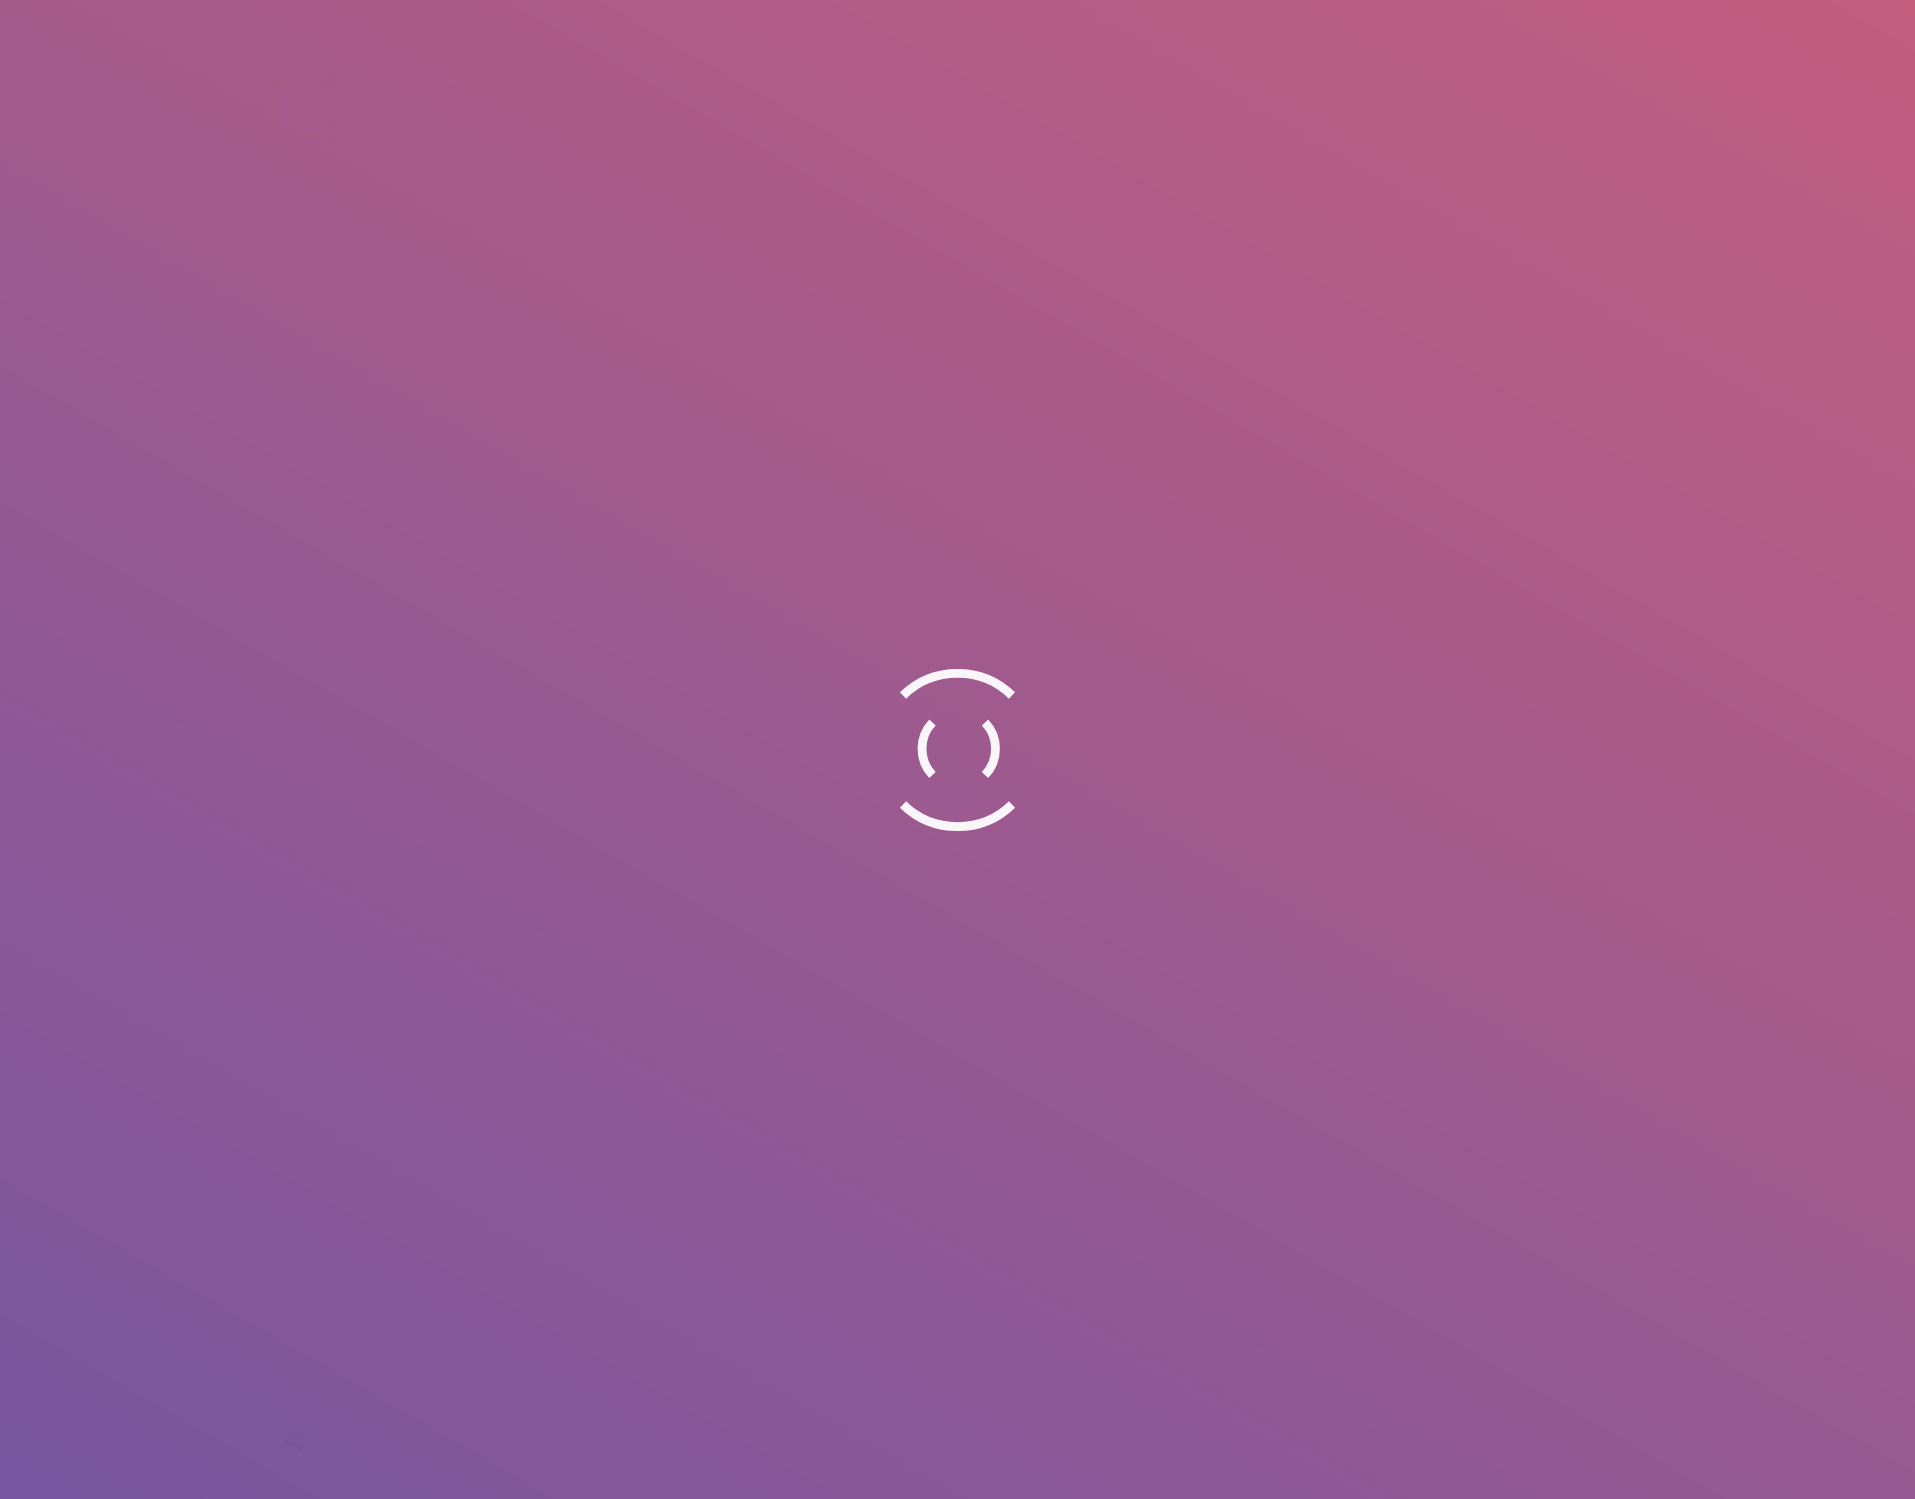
void draw(SkCanvas* canvas) {
    SkPaint paint;
    paint.setAntiAlias(true);
    auto block = [&](float x, float y, float w, float h, SkColor color) {
        SkPaint ink(SkColor4f::FromColor(color));
        ink.setAntiAlias(true);
        canvas->drawRect(SkRect::MakeXYWH(x, y, w, h), ink);
    };
    auto paste = [&](const char* path, float x, float y, float w, float h) {
        auto image = SkImages::DeferredFromEncodedData(SkData::MakeFromFileName(path));
        canvas->drawImageRect(image, SkRect::MakeXYWH(x, y, w, h), SkSamplingOptions());
    };
    canvas->clear(SK_ColorWHITE);
    canvas->save();
    canvas->clipPath(SkPathBuilder(SkPathFillType::kEvenOdd).moveTo(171, 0).lineTo(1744, 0).lineTo(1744, 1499).lineTo(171, 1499).close().moveTo(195, 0).lineTo(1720, 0).lineTo(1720, 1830).lineTo(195, 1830).close().detach(), true);
    paint.setColor(SkColorSetARGB(38, 0, 0, 0));
    paint.setMaskFilter(SkMaskFilter::MakeBlur(kNormal_SkBlurStyle, 7.5f));
    canvas->drawRect(SkRect::MakeXYWH(195, 0, 1525, 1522), paint);
    paint.setMaskFilter(nullptr);
    canvas->restore();
    canvas->save();
    canvas->clipRect(SkRect::MakeXYWH(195, 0, 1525, 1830));
    canvas->clipRect(SkRect::MakeXYWH(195, 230, 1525, 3));
    paint.setMaskFilter(SkMaskFilter::MakeBlur(kNormal_SkBlurStyle, 2.5f));
    canvas->drawRect(SkRect::MakeXYWH(195, 0, 1525, 230), paint);
    paint.setMaskFilter(nullptr);
    canvas->restore();
    block(195, 48, 1525, 1, SkColorSetRGB(237, 237, 237));
    paste("pic1.png", 270, 76, 64, 63);
    block(195, 166, 1525, 1, SkColorSetRGB(237, 237, 237));
    paste("pic2.png", 285, 1432, 18, 18);
    paint.setStyle(SkPaint::kStroke_Style);
    paint.setStrokeWidth(3);
    paint.setColor(SkColorSetRGB(239, 239, 239));
    canvas->drawRoundRect(SkRect::MakeXYWH(271.5f, 1417.5f, 171, 49), 1, 1, paint);
    paint.setStyle(SkPaint::kFill_Style);
    {
        const SkColor colors[] = {SkColorSetARGB(250, 117, 83, 158), SkColorSetARGB(250, 194, 91, 124)};
        const float stops[] = {0, 1};
        const SkPoint ends[] = {{393, 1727}, {1522, -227}};
        paint.setShader(SkGradientShader::MakeLinear(ends, colors, stops, 2, SkTileMode::kClamp));
        paint.setAlpha(255);
    }
    canvas->drawRect(SkRect::MakeXYWH(0, 0, 1915, 1499), paint);
    paint.setStyle(SkPaint::kStroke_Style);
    paint.setStrokeWidth(8.8f);
    paint.setShader(nullptr);
    paint.setColor(SkColorSetRGB(249, 245, 248));
    canvas->drawPath(SkPathBuilder().moveTo(903, 695.5f).cubicTo(933, 666, 982, 666, 1012, 695.5f).detach(), paint);
    canvas->drawPath(SkPathBuilder().moveTo(1012, 804.5f).cubicTo(982, 834, 933, 834, 903, 804.5f).detach(), paint);
    canvas->drawPath(SkPathBuilder().moveTo(985, 722.5f).cubicTo(999, 737, 999, 760.5f, 985, 775).detach(), paint);
    canvas->drawPath(SkPathBuilder().moveTo(932.5f, 775).cubicTo(918.5f, 760.5f, 918.5f, 737, 932.5f, 722.5f).detach(), paint);
}
